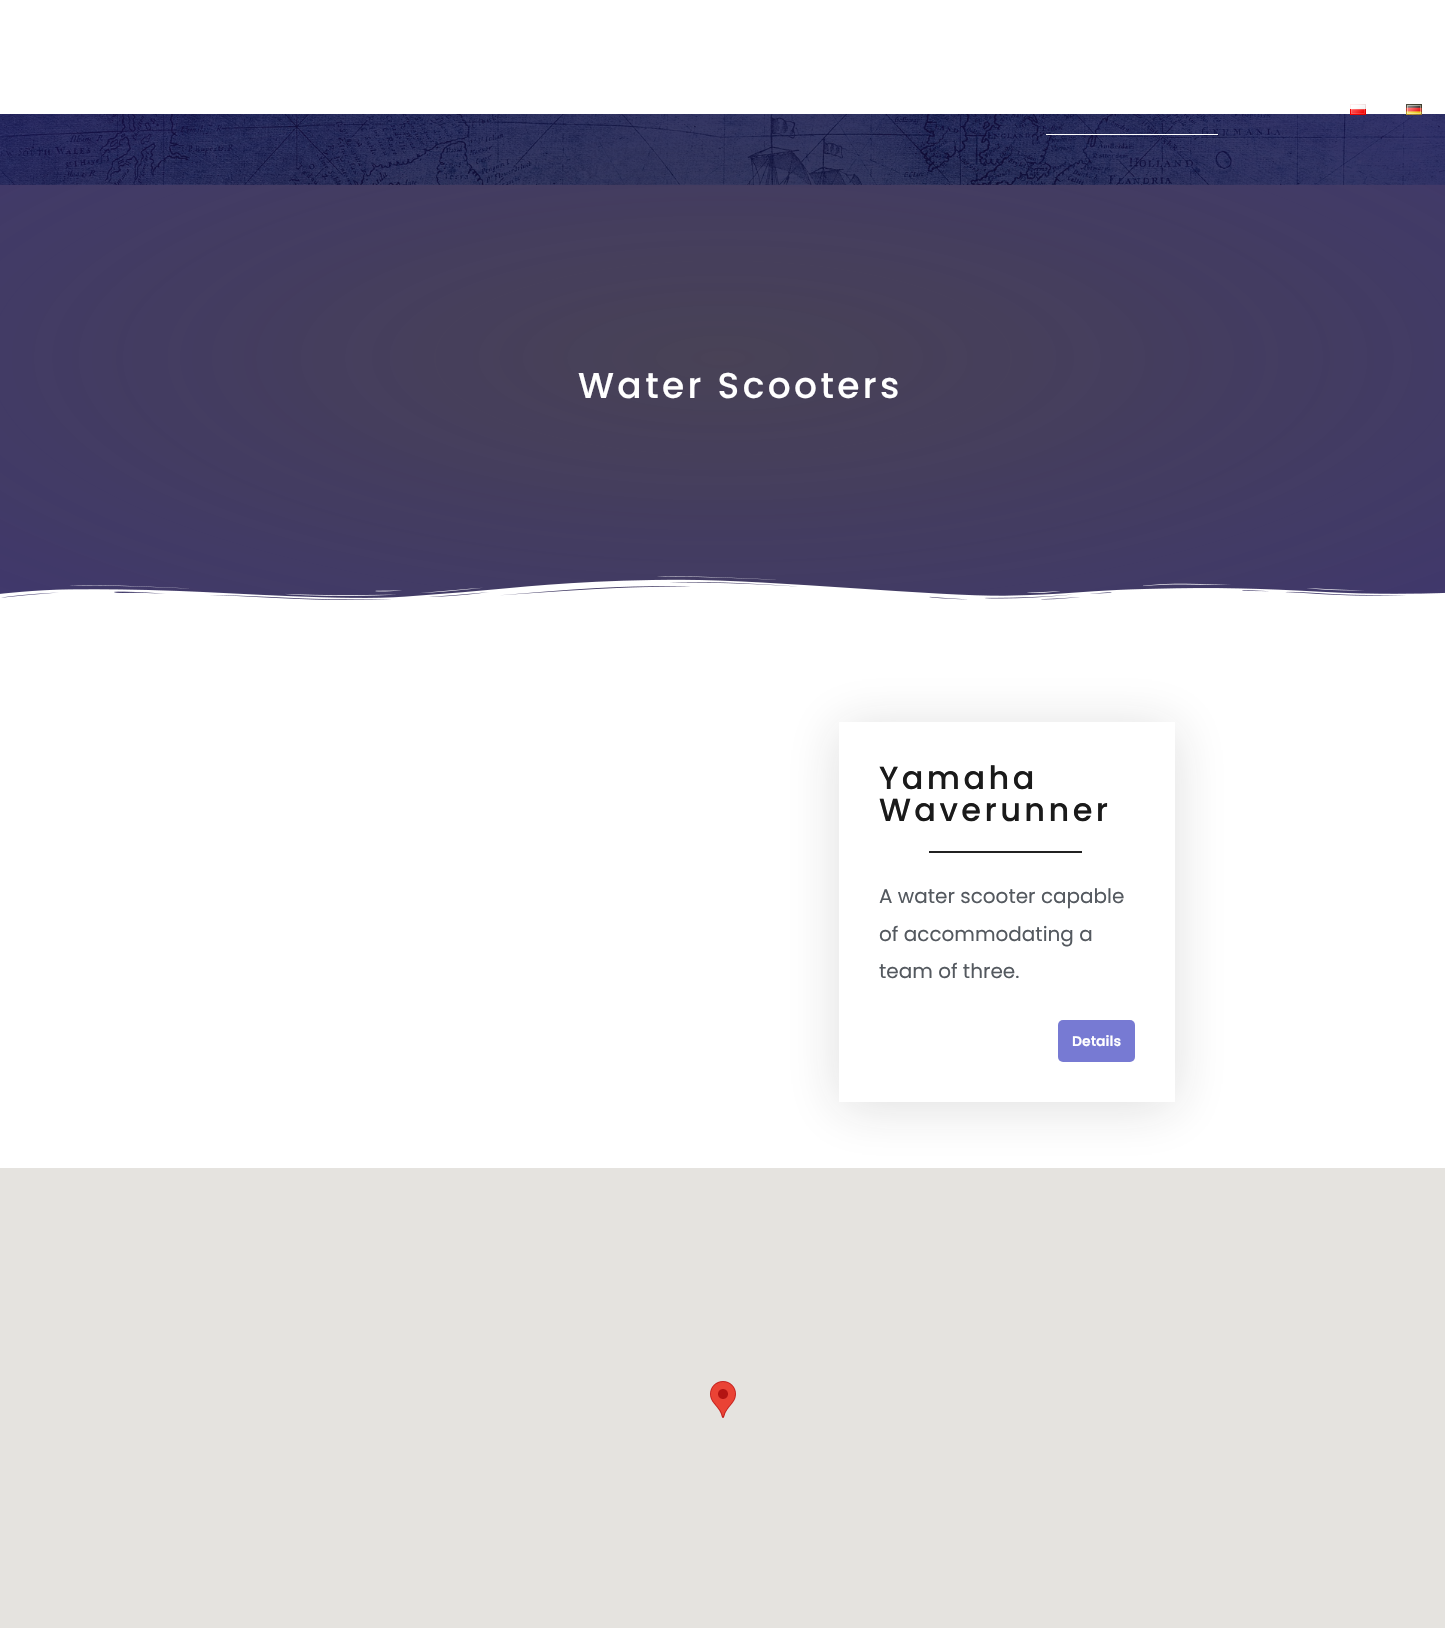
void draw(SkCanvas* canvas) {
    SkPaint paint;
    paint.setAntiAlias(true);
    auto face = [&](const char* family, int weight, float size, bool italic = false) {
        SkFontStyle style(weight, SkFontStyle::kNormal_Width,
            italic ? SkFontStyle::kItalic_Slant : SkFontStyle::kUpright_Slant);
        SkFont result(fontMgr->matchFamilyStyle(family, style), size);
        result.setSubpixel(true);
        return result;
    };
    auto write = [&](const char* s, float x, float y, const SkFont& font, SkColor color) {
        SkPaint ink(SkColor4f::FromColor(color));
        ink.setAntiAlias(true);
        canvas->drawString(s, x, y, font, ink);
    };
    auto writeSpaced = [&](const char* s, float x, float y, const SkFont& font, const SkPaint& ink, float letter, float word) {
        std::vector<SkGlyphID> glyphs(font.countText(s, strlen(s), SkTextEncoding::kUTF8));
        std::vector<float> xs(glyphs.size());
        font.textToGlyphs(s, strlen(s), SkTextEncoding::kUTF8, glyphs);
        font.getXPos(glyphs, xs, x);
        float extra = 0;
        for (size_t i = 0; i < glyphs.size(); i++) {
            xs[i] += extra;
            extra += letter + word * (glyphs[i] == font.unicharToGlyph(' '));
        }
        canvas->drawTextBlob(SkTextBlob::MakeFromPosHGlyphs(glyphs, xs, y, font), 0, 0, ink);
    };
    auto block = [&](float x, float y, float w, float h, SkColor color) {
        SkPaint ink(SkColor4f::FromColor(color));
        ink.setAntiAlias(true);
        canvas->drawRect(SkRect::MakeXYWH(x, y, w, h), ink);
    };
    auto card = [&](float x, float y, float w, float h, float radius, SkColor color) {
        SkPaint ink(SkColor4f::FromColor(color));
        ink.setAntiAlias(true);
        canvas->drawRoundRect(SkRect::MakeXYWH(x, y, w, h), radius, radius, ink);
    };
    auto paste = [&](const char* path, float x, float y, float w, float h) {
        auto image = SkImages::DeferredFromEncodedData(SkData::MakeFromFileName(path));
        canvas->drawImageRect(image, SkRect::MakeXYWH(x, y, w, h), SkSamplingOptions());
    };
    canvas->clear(SK_ColorWHITE);
    paste("pic3.png", 0, 114, 1445, 71);
    {
        const SkColor colors[] = {SkColorSetARGB(189, 9, 0, 27), SkColorSetARGB(212, 25, 16, 78)};
        const float stops[] = {0, 1};
        SkMatrix m = SkMatrix::Translate(723, 358).preScale(1022, 345);
        paint.setShader(SkGradientShader::MakeRadial({0, 0}, 1, colors, stops, 2, SkTileMode::kClamp, 0, &m));
        paint.setAlpha(255);
    }
    canvas->drawRect(SkRect::MakeXYWH(0, 114, 1445, 486), paint);
    paste("pic1.png", 1350, 104, 16, 11);
    paste("pic2.png", 1406, 104, 16, 11);
    block(1046, 134, 172, 1, SK_ColorWHITE);
    auto kFont1 = face("Poppins", 500, 36);
    paint.setShader(nullptr);
    paint.setColor(SK_ColorWHITE);
    writeSpaced("Water Scooters", 578, 398, kFont1, paint, 3.4f, 0);
    paste("pic4.png", 0, 576, 1445, 26);
    canvas->save();
    canvas->clipPath(SkPathBuilder(SkPathFillType::kEvenOdd).moveTo(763, 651).lineTo(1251, 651).lineTo(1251, 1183).lineTo(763, 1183).close().moveTo(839, 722).lineTo(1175, 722).lineTo(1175, 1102).lineTo(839, 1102).close().detach(), true);
    paint.setColor(SkColorSetARGB(38, 33, 33, 33));
    paint.setMaskFilter(SkMaskFilter::MakeBlur(kNormal_SkBlurStyle, 25));
    canvas->drawRect(SkRect::MakeXYWH(839, 727, 336, 380), paint);
    paint.setMaskFilter(nullptr);
    canvas->restore();
    auto kFont2 = face("Poppins", 500, 32);
    paint.setColor(SkColorSetRGB(26, 26, 26));
    writeSpaced("Yamaha", 879, 789, kFont2, paint, 3.4f, 0);
    writeSpaced("Waverunner", 879, 821, kFont2, paint, 3.4f, 0);
    block(929, 851, 153, 2, SkColorSetRGB(33, 33, 33));
    auto kFont3 = face("Poppins", 400, 20);
    write("A water scooter capable", 879, 903, kFont3, SkColorSetRGB(84, 89, 95));
    write("of accommodating a", 879, 941, kFont3, SkColorSetRGB(84, 89, 95));
    write("team of three.", 879, 978, kFont3, SkColorSetRGB(84, 89, 95));
    card(1058, 1020, 77, 42, 5, SkColorSetRGB(119, 122, 211));
    auto kFont4 = face("Poppins", 600, 14);
    write("Details", 1072, 1046, kFont4, SK_ColorWHITE);
    block(0, 1168, 1445, 460, SkColorSetRGB(229, 227, 223));
    paste("pic5.png", 710, 1381, 26, 37);
}
